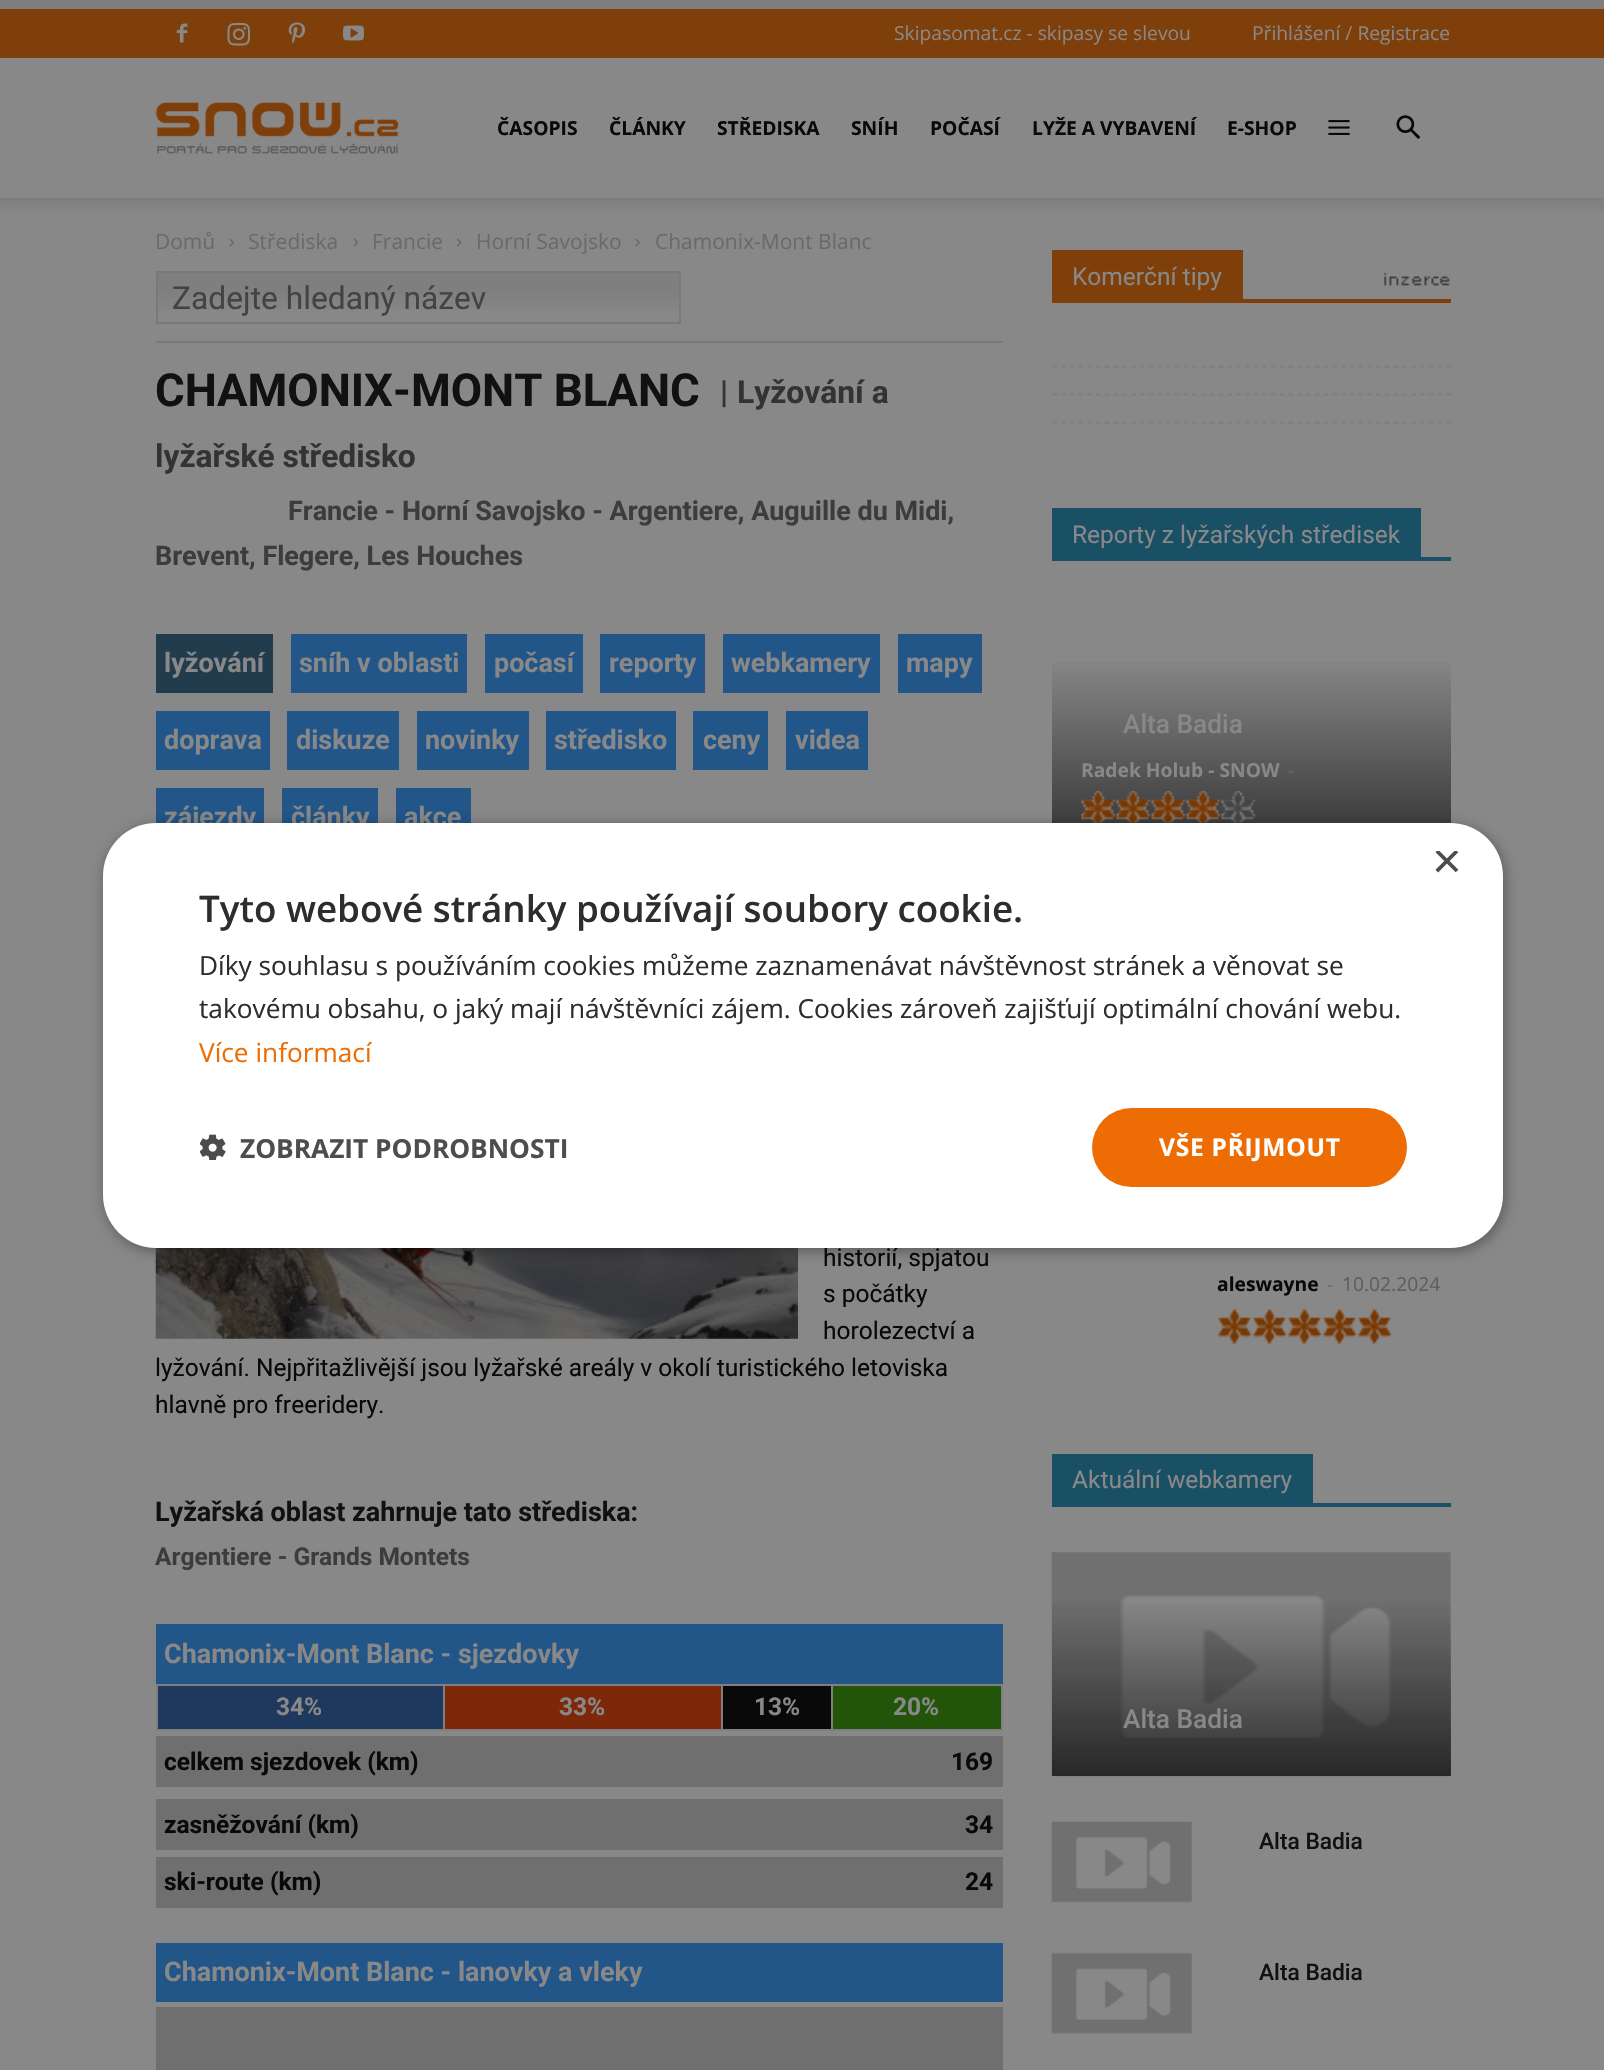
void draw(SkCanvas* canvas) {
    SkPaint paint;
    paint.setAntiAlias(true);
    auto face = [&](const char* family, int weight, float size, bool italic = false) {
        SkFontStyle style(weight, SkFontStyle::kNormal_Width,
            italic ? SkFontStyle::kItalic_Slant : SkFontStyle::kUpright_Slant);
        SkFont result(fontMgr->matchFamilyStyle(family, style), size);
        result.setSubpixel(true);
        return result;
    };
    auto write = [&](const char* s, float x, float y, const SkFont& font, SkColor color) {
        SkPaint ink(SkColor4f::FromColor(color));
        ink.setAntiAlias(true);
        canvas->drawString(s, x, y, font, ink);
    };
    auto writeSpaced = [&](const char* s, float x, float y, const SkFont& font, const SkPaint& ink, float letter, float word) {
        std::vector<SkGlyphID> glyphs(font.countText(s, strlen(s), SkTextEncoding::kUTF8));
        std::vector<float> xs(glyphs.size());
        font.textToGlyphs(s, strlen(s), SkTextEncoding::kUTF8, glyphs);
        font.getXPos(glyphs, xs, x);
        float extra = 0;
        for (size_t i = 0; i < glyphs.size(); i++) {
            xs[i] += extra;
            extra += letter + word * (glyphs[i] == font.unicharToGlyph(' '));
        }
        canvas->drawTextBlob(SkTextBlob::MakeFromPosHGlyphs(glyphs, xs, y, font), 0, 0, ink);
    };
    auto block = [&](float x, float y, float w, float h, SkColor color) {
        SkPaint ink(SkColor4f::FromColor(color));
        ink.setAntiAlias(true);
        canvas->drawRect(SkRect::MakeXYWH(x, y, w, h), ink);
    };
    auto card = [&](float x, float y, float w, float h, float radius, SkColor color) {
        SkPaint ink(SkColor4f::FromColor(color));
        ink.setAntiAlias(true);
        canvas->drawRoundRect(SkRect::MakeXYWH(x, y, w, h), radius, radius, ink);
    };
    auto paste = [&](const char* path, float x, float y, float w, float h) {
        auto image = SkImages::DeferredFromEncodedData(SkData::MakeFromFileName(path));
        canvas->drawImageRect(image, SkRect::MakeXYWH(x, y, w, h), SkSamplingOptions());
    };
    canvas->clear(SkColorSetRGB(127, 127, 127));
    block(0, 9, 1604, 49, SkColorSetRGB(127, 63, 11));
    paste("pic1.png", 176, 23, 12, 20);
    paste("pic2.png", 227, 23, 23, 23);
    paste("pic3.png", 288, 22, 18, 22);
    paste("pic4.png", 343, 25, 21, 16);
    auto kFont1 = face("Open Sans", 400, 19.25f);
    write("Skipasomat.cz - skipasy se slevou", 894, 40, kFont1, SkColorSetRGB(136, 136, 136));
    write("Přihlášení / Registrace", 1252, 40, kFont1, SkColorSetRGB(136, 136, 136));
    block(0, 58, 1604, 2012, SkColorSetRGB(136, 136, 136));
    paste("pic5.png", 155, 102, 244, 52);
    auto kFont2 = face("Open Sans", 700, 19.25f);
    write("ČASOPIS", 497, 135, kFont2, SkColorSetRGB(9, 9, 9));
    write("ČLÁNKY", 609, 135, kFont2, SkColorSetRGB(9, 9, 9));
    write("STŘEDISKA", 717, 135, kFont2, SkColorSetRGB(9, 9, 9));
    write("SNÍH", 851, 135, kFont2, SkColorSetRGB(9, 9, 9));
    write("POČASÍ", 930, 135, kFont2, SkColorSetRGB(9, 9, 9));
    write("LYŽE A VYBAVENÍ", 1032, 135, kFont2, SkColorSetRGB(9, 9, 9));
    write("E-SHOP", 1227, 135, kFont2, SkColorSetRGB(9, 9, 9));
    paste("pic6.png", 1328, 120, 22, 15);
    paste("pic7.png", 1396, 115, 24, 24);
    paste("pic8.png", 0, 198, 1604, 15);
    auto kFont3 = face("Open Sans", 400, 21);
    write("Domů", 155, 249, kFont3, SkColorSetRGB(106, 106, 106));
    paste("pic9.png", 229, 238, 5, 9);
    write("Střediska", 248, 249, kFont3, SkColorSetRGB(106, 106, 106));
    paste("pic10.png", 353, 238, 6, 9);
    write("Francie", 372, 249, kFont3, SkColorSetRGB(106, 106, 106));
    paste("pic11.png", 456, 238, 6, 9);
    write("Horní Savojsko", 476, 249, kFont3, SkColorSetRGB(106, 106, 106));
    paste("pic9.png", 635, 238, 5, 9);
    write("Chamonix-Mont Blanc", 655, 249, kFont3, SkColorSetRGB(106, 106, 106));
    block(156, 341, 847, 2, SkColorSetRGB(120, 120, 120));
    {
        const SkColor colors[] = {SkColorSetRGB(127, 127, 127), SkColorSetRGB(136, 136, 136)};
        const float stops[] = {0.35f, 0.91f};
        const SkPoint ends[] = {{158, 273}, {158, 322}};
        paint.setShader(SkGradientShader::MakeLinear(ends, colors, stops, 2, SkTileMode::kClamp));
        paint.setAlpha(255);
    }
    canvas->drawRect(SkRect::MakeXYWH(158, 273, 521, 37), paint);
    paint.setStyle(SkPaint::kStroke_Style);
    paint.setStrokeWidth(2);
    paint.setShader(nullptr);
    paint.setColor(SkColorSetRGB(121, 121, 121));
    canvas->drawRect(SkRect::MakeXYWH(157, 272, 523, 51), paint);
    auto kFont4 = face("Roboto", 400, 31.75f);
    write("Zadejte hledaný název", 172, 309, kFont4, SkColorSetRGB(67, 67, 67));
    auto kFont5 = face("Roboto", 700, 45.5f);
    write("CHAMONIX-MONT BLANC", 155, 406, kFont5, SkColorSetRGB(17, 17, 17));
    auto kFont6 = face("Roboto", 700, 31.75f);
    write("|", 720, 403, kFont6, SkColorSetRGB(51, 51, 51));
    write("Lyžování a", 737, 403, kFont6, SkColorSetRGB(51, 51, 51));
    write("lyžařské středisko", 155, 467, kFont6, SkColorSetRGB(51, 51, 51));
    auto kFont7 = face("Roboto", 700, 26.95f);
    write("Francie - Horní Savojsko - Argentiere, Auguille du Midi,", 288, 520, kFont7, SkColorSetRGB(60, 60, 60));
    write("Brevent, Flegere, Les Houches", 155, 565, kFont7, SkColorSetRGB(60, 60, 60));
    block(156, 634, 117, 59, SkColorSetRGB(34, 60, 77));
    write("lyžování", 164, 672, kFont7, SkColorSetRGB(136, 136, 136));
    block(291, 634, 176, 59, SkColorSetRGB(34, 85, 136));
    write("sníh v oblasti", 299, 672, kFont7, SkColorSetRGB(136, 136, 136));
    block(485, 634, 98, 59, SkColorSetRGB(34, 85, 136));
    write("počasí", 494, 672, kFont7, SkColorSetRGB(136, 136, 136));
    block(600, 634, 105, 59, SkColorSetRGB(34, 85, 136));
    write("reporty", 609, 672, kFont7, SkColorSetRGB(136, 136, 136));
    block(723, 634, 157, 59, SkColorSetRGB(34, 85, 136));
    write("webkamery", 731, 672, kFont7, SkColorSetRGB(136, 136, 136));
    block(898, 634, 84, 59, SkColorSetRGB(34, 85, 136));
    write("mapy", 906, 672, kFont7, SkColorSetRGB(136, 136, 136));
    block(156, 711, 114, 59, SkColorSetRGB(34, 85, 136));
    write("doprava", 164, 749, kFont7, SkColorSetRGB(136, 136, 136));
    block(287, 711, 112, 59, SkColorSetRGB(34, 85, 136));
    write("diskuze", 296, 749, kFont7, SkColorSetRGB(136, 136, 136));
    block(417, 711, 112, 59, SkColorSetRGB(34, 85, 136));
    write("novinky", 425, 749, kFont7, SkColorSetRGB(136, 136, 136));
    block(546, 711, 130, 59, SkColorSetRGB(34, 85, 136));
    write("středisko", 554, 749, kFont7, SkColorSetRGB(136, 136, 136));
    block(693, 711, 75, 59, SkColorSetRGB(34, 85, 136));
    write("ceny", 703, 749, kFont7, SkColorSetRGB(136, 136, 136));
    block(786, 711, 82, 59, SkColorSetRGB(34, 85, 136));
    write("videa", 795, 749, kFont7, SkColorSetRGB(136, 136, 136));
    block(156, 788, 108, 35, SkColorSetRGB(34, 85, 136));
    write("zájezdy", 164, 826, kFont7, SkColorSetRGB(136, 136, 136));
    block(282, 788, 96, 35, SkColorSetRGB(34, 85, 136));
    write("články", 291, 826, kFont7, SkColorSetRGB(136, 136, 136));
    block(396, 788, 75, 35, SkColorSetRGB(34, 85, 136));
    write("akce", 404, 826, kFont7, SkColorSetRGB(136, 136, 136));
    paste("pic12.png", 155, 1247, 643, 92);
    auto kFont8 = face("Roboto", 400, 24.5f);
    write("historií, spjatou", 823, 1266, kFont8, SkColorSetRGB(9, 9, 9));
    write("s počátky", 823, 1302, kFont8, SkColorSetRGB(9, 9, 9));
    write("horolezectví a", 823, 1339, kFont8, SkColorSetRGB(9, 9, 9));
    write("lyžování. Nejpřitažlivější jsou lyžařské areály v okolí turistického letoviska", 155, 1376, kFont8, SkColorSetRGB(9, 9, 9));
    write("hlavně pro freeridery.", 155, 1413, kFont8, SkColorSetRGB(9, 9, 9));
    write("Lyžařská oblast zahrnuje tato střediska:", 155, 1521, kFont7, SkColorSetRGB(17, 17, 17));
    auto kFont9 = face("Roboto", 700, 24.5f);
    write("Argentiere - Grands Montets", 155, 1565, kFont9, SkColorSetRGB(60, 60, 60));
    block(156, 1624, 847, 60, SkColorSetRGB(34, 85, 136));
    write("Chamonix-Mont Blanc - sjezdovky", 164, 1663, kFont7, SkColorSetRGB(136, 136, 136));
    block(158, 1686, 285, 43, SkColorSetRGB(30, 56, 94));
    block(831, 1684, 172, 2, SkColorSetRGB(127, 127, 127));
    block(1001, 1684, 2, 47, SkColorSetRGB(127, 127, 127));
    block(831, 1729, 172, 2, SkColorSetRGB(127, 127, 127));
    block(831, 1684, 2, 47, SkColorSetRGB(127, 127, 127));
    block(721, 1684, 112, 2, SkColorSetRGB(127, 127, 127));
    block(721, 1729, 112, 2, SkColorSetRGB(127, 127, 127));
    block(721, 1684, 2, 47, SkColorSetRGB(127, 127, 127));
    block(443, 1684, 280, 2, SkColorSetRGB(127, 127, 127));
    block(443, 1729, 280, 2, SkColorSetRGB(127, 127, 127));
    block(443, 1684, 2, 47, SkColorSetRGB(127, 127, 127));
    block(156, 1684, 289, 2, SkColorSetRGB(127, 127, 127));
    block(156, 1729, 289, 2, SkColorSetRGB(127, 127, 127));
    block(156, 1684, 2, 47, SkColorSetRGB(127, 127, 127));
    write("34%", 276, 1715, kFont9, SkColorSetRGB(136, 136, 136));
    block(445, 1686, 276, 43, SkColorSetRGB(125, 41, 9));
    write("33%", 559, 1715, kFont9, SkColorSetRGB(136, 136, 136));
    block(723, 1686, 108, 43, SkColorSetRGB(9, 9, 9));
    write("13%", 754, 1715, kFont9, SkColorSetRGB(136, 136, 136));
    block(833, 1686, 168, 43, SkColorSetRGB(34, 85, 9));
    write("20%", 893, 1715, kFont9, SkColorSetRGB(136, 136, 136));
    block(156, 1736, 847, 51, SkColorSetRGB(111, 111, 111));
    write("celkem sjezdovek (km)", 164, 1770, kFont9, SkColorSetRGB(9, 9, 9));
    write("169", 951, 1770, kFont9, SkColorSetRGB(9, 9, 9));
    block(156, 1799, 847, 51, SkColorSetRGB(111, 111, 111));
    write("zasněžování (km)", 164, 1833, kFont9, SkColorSetRGB(9, 9, 9));
    write("34", 965, 1833, kFont9, SkColorSetRGB(9, 9, 9));
    block(156, 1857, 847, 51, SkColorSetRGB(111, 111, 111));
    write("ski-route (km)", 164, 1890, kFont9, SkColorSetRGB(9, 9, 9));
    write("24", 965, 1890, kFont9, SkColorSetRGB(9, 9, 9));
    block(156, 1943, 847, 59, SkColorSetRGB(34, 85, 136));
    write("Chamonix-Mont Blanc - lanovky a vleky", 164, 1981, kFont7, SkColorSetRGB(136, 136, 136));
    block(156, 2007, 847, 63, SkColorSetRGB(111, 111, 111));
    block(1052, 299, 399, 4, SkColorSetRGB(127, 63, 11));
    block(1052, 250, 191, 49, SkColorSetRGB(127, 63, 11));
    write("Komerční tipy", 1072, 285, kFont8, SkColorSetRGB(136, 136, 136));
    paste("pic13.png", 1383, 272, 67, 14);
    paint.setStrokeWidth(1.8f);
    paint.setColor(SkColorSetRGB(126, 126, 126));
    paint.setPathEffect(SkDashPathEffect::Make({{5.25f, 3.5f}}, 0));
    canvas->drawPath(SkPathBuilder().moveTo(1052, 366.5f).lineTo(1451, 366.5f).detach(), paint);
    paint.setPathEffect(nullptr);
    paint.setPathEffect(SkDashPathEffect::Make({{5.25f, 3.5f}}, 0));
    canvas->drawPath(SkPathBuilder().moveTo(1052, 394.5f).lineTo(1451, 394.5f).detach(), paint);
    paint.setPathEffect(nullptr);
    paint.setPathEffect(SkDashPathEffect::Make({{5.25f, 3.5f}}, 0));
    canvas->drawPath(SkPathBuilder().moveTo(1052, 422.5f).lineTo(1451, 422.5f).detach(), paint);
    paint.setPathEffect(nullptr);
    block(1052, 557, 399, 4, SkColorSetRGB(26, 80, 102));
    block(1052, 508, 369, 49, SkColorSetRGB(26, 80, 102));
    write("Reporty z lyžařských středisek", 1072, 543, kFont8, SkColorSetRGB(136, 136, 136));
    paint.setStyle(SkPaint::kFill_Style);
    {
        const SkColor colors[] = {SkColorSetRGB(136, 136, 136), SkColorSetRGB(47, 47, 47)};
        const float stops[] = {0, 1};
        const SkPoint ends[] = {{1251, 656}, {1251, 856}};
        paint.setShader(SkGradientShader::MakeLinear(ends, colors, stops, 2, SkTileMode::kClamp));
        paint.setAlpha(255);
    }
    canvas->drawRect(SkRect::MakeXYWH(1052, 662, 399, 162), paint);
    auto kFont10 = face("Roboto", 500, 26.25f);
    write("Alta Badia", 1123, 733, kFont10, SkColorSetRGB(136, 136, 136));
    write("Radek Holub - SNOW", 1081, 777, kFont2, SkColorSetRGB(136, 136, 136));
    write("-", 1288, 777, kFont1, SkColorSetRGB(106, 106, 106));
    paste("pic14.png", 1081, 791, 35, 32);
    paste("pic14.png", 1116, 791, 35, 32);
    paste("pic15.png", 1151, 791, 35, 32);
    paste("pic15.png", 1186, 791, 35, 32);
    paste("pic16.png", 1221, 791, 35, 32);
    write("aleswayne", 1217, 1291, kFont2, SkColorSetRGB(9, 9, 9));
    write("-", 1327, 1291, kFont1, SkColorSetRGB(106, 106, 106));
    write("10.02.2024", 1342, 1291, kFont1, SkColorSetRGB(94, 94, 94));
    paste("pic17.png", 1218, 1309, 34, 35);
    paste("pic17.png", 1253, 1309, 34, 35);
    paste("pic17.png", 1288, 1309, 34, 35);
    paste("pic17.png", 1323, 1309, 34, 35);
    paste("pic17.png", 1358, 1309, 34, 35);
    block(1052, 1503, 399, 4, SkColorSetRGB(26, 80, 102));
    block(1052, 1454, 261, 49, SkColorSetRGB(26, 80, 102));
    write("Aktuální webkamery", 1072, 1488, kFont8, SkColorSetRGB(136, 136, 136));
    paste("pic18.png", 1051, 1552, 400, 225);
    {
        const SkColor colors[] = {SkColorSetARGB(0, 9, 9, 9), SkColorSetARGB(179, 9, 9, 9)};
        const float stops[] = {0, 1};
        const SkPoint ends[] = {{1251, 1596}, {1251, 1776}};
        paint.setShader(SkGradientShader::MakeLinear(ends, colors, stops, 2, SkTileMode::kClamp));
        paint.setAlpha(255);
    }
    canvas->drawRect(SkRect::MakeXYWH(1052, 1602, 399, 174), paint);
    write("Alta Badia", 1123, 1728, kFont10, SkColorSetRGB(136, 136, 136));
    paste("pic19.png", 1051, 1821, 141, 82);
    auto kFont11 = face("Roboto", 500, 22.75f);
    write("Alta Badia", 1259, 1849, kFont11, SkColorSetRGB(17, 17, 17));
    paste("pic20.png", 1051, 1952, 141, 82);
    write("Alta Badia", 1259, 1980, kFont11, SkColorSetRGB(17, 17, 17));
    paint.setShader(nullptr);
    paint.setColor(SkColorSetARGB(89, 0, 0, 0));
    paint.setMaskFilter(SkMaskFilter::MakeBlur(kNormal_SkBlurStyle, 7));
    canvas->drawRoundRect(SkRect::MakeXYWH(105, 826, 1400, 425), 53, 53, paint);
    paint.setMaskFilter(nullptr);
    card(103, 823, 1400, 425, 53, SK_ColorWHITE);
    canvas->save();
    canvas->clipRect(SkRect::MakeXYWH(1433, 851, 27, 26));
    auto kFont12 = face("Liberation Sans", 400, 51);
    write("×", 1432, 878, kFont12, SkColorSetRGB(77, 77, 77));
    canvas->restore();
    auto kFont13 = face("Open Sans", 600, 36.75f);
    write("Tyto webové stránky používají soubory cookie.", 199, 922, kFont13, SkColorSetRGB(45, 45, 45));
    auto kFont14 = face("Open Sans", 400, 26.25f);
    write("Díky souhlasu s používáním cookies můžeme zaznamenávat návštěvnost stránek a věnovat se", 199, 975, kFont14, SkColorSetRGB(45, 45, 45));
    write("takovému obsahu, o jaký mají návštěvníci zájem. Cookies zároveň zajišťují optimální chování webu.", 199, 1018, kFont14, SkColorSetRGB(45, 45, 45));
    write("Více informací", 199, 1062, kFont14, SkColorSetRGB(237, 109, 4));
    paste("pic21.png", 200, 1134, 26, 26);
    auto kFont15 = face("Open Sans", 700, 26.25f);
    write("ZOBRAZIT PODROBNOSTI", 240, 1158, kFont15, SkColorSetRGB(77, 77, 77));
    card(1092, 1108, 315, 79, 39.5f, SkColorSetRGB(237, 109, 4));
    auto kFont16 = face("Open Sans", 700, 24.5f);
    paint.setColor(SK_ColorWHITE);
    writeSpaced("VŠE PŘIJMOUT", 1159, 1156, kFont16, paint, 0.75f, 0);
}
